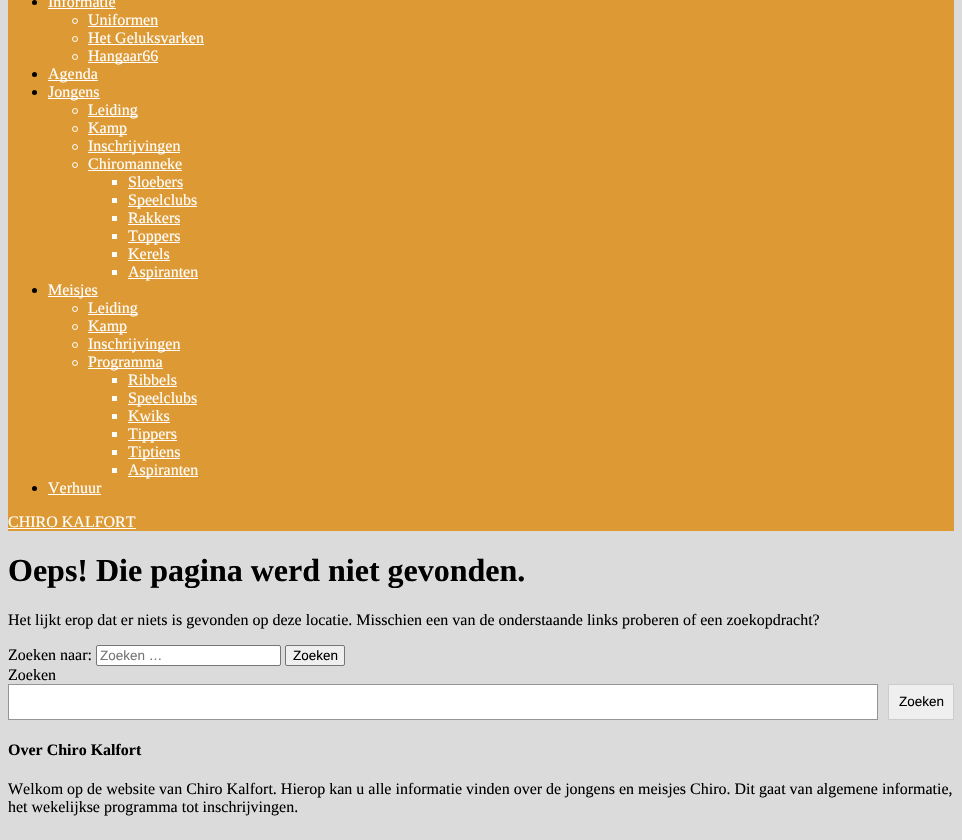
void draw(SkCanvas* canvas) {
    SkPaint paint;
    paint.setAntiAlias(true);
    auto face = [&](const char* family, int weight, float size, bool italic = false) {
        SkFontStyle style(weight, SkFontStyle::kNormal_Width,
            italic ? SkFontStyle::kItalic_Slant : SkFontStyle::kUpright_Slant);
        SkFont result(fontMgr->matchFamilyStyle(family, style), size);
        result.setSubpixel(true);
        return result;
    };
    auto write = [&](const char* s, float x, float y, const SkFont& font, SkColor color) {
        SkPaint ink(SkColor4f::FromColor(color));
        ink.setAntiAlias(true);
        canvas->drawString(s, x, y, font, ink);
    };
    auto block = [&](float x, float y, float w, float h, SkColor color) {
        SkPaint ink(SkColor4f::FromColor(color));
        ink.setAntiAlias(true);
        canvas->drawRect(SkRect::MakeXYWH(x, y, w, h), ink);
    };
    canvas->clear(SkColorSetRGB(219, 219, 219));
    block(8, 0, 946, 531, SkColorSetRGB(221, 153, 51));
    paint.setColor(SK_ColorBLACK);
    canvas->drawCircle(34.5f, 2.5f, 2.5f, paint);
    auto kFont1 = face("Liberation Serif", 400, 16);
    write("Informatie", 48, 7, kFont1, SK_ColorWHITE);
    block(48, 8, 68, 1, SK_ColorWHITE);
    paint.setStyle(SkPaint::kStroke_Style);
    paint.setStrokeWidth(1);
    paint.setColor(SK_ColorWHITE);
    canvas->drawCircle(75, 21, 2.5f, paint);
    write("Uniformen", 88, 25, kFont1, SK_ColorWHITE);
    block(88, 26, 70, 1, SK_ColorWHITE);
    canvas->drawCircle(75, 39, 2.5f, paint);
    write("Het Geluksvarken", 88, 43, kFont1, SK_ColorWHITE);
    block(88, 44, 116, 1, SK_ColorWHITE);
    canvas->drawCircle(75, 57, 2.5f, paint);
    block(88, 62, 70, 1, SK_ColorWHITE);
    write("Hangaar66", 88, 61, kFont1, SK_ColorWHITE);
    paint.setStyle(SkPaint::kFill_Style);
    paint.setColor(SK_ColorBLACK);
    canvas->drawCircle(34.5f, 74.5f, 2.5f, paint);
    block(48, 80, 50, 1, SK_ColorWHITE);
    write("Agenda", 48, 79, kFont1, SK_ColorWHITE);
    canvas->drawCircle(34.5f, 92.5f, 2.5f, paint);
    block(48, 98, 52, 1, SK_ColorWHITE);
    write("Jongens", 48, 97, kFont1, SK_ColorWHITE);
    paint.setStyle(SkPaint::kStroke_Style);
    paint.setColor(SK_ColorWHITE);
    canvas->drawCircle(75, 111, 2.5f, paint);
    block(88, 116, 50, 1, SK_ColorWHITE);
    write("Leiding", 88, 115, kFont1, SK_ColorWHITE);
    canvas->drawCircle(75, 129, 2.5f, paint);
    block(88, 134, 39, 1, SK_ColorWHITE);
    write("Kamp", 88, 133, kFont1, SK_ColorWHITE);
    canvas->drawCircle(75, 147, 2.5f, paint);
    block(88, 152, 92, 1, SK_ColorWHITE);
    write("Inschrijvingen", 88, 151, kFont1, SK_ColorWHITE);
    canvas->drawCircle(75, 165, 2.5f, paint);
    write("Chiromanneke", 88, 169, kFont1, SK_ColorWHITE);
    block(88, 170, 94, 1, SK_ColorWHITE);
    block(112, 180, 5, 5, SK_ColorWHITE);
    write("Sloebers", 128, 187, kFont1, SK_ColorWHITE);
    block(128, 188, 55, 1, SK_ColorWHITE);
    block(112, 198, 5, 5, SK_ColorWHITE);
    block(128, 206, 69, 1, SK_ColorWHITE);
    write("Speelclubs", 128, 205, kFont1, SK_ColorWHITE);
    block(112, 216, 5, 5, SK_ColorWHITE);
    write("Rakkers", 128, 223, kFont1, SK_ColorWHITE);
    block(128, 224, 52, 1, SK_ColorWHITE);
    block(112, 234, 5, 5, SK_ColorWHITE);
    block(128, 242, 52, 1, SK_ColorWHITE);
    write("Toppers", 128, 241, kFont1, SK_ColorWHITE);
    block(112, 252, 5, 5, SK_ColorWHITE);
    write("Kerels", 128, 259, kFont1, SK_ColorWHITE);
    block(128, 260, 42, 1, SK_ColorWHITE);
    block(112, 270, 5, 5, SK_ColorWHITE);
    block(128, 278, 70, 1, SK_ColorWHITE);
    write("Aspiranten", 128, 277, kFont1, SK_ColorWHITE);
    paint.setStyle(SkPaint::kFill_Style);
    paint.setColor(SK_ColorBLACK);
    canvas->drawCircle(34.5f, 290.5f, 2.5f, paint);
    block(48, 296, 50, 1, SK_ColorWHITE);
    write("Meisjes", 48, 295, kFont1, SK_ColorWHITE);
    paint.setStyle(SkPaint::kStroke_Style);
    paint.setColor(SK_ColorWHITE);
    canvas->drawCircle(75, 309, 2.5f, paint);
    block(88, 314, 50, 1, SK_ColorWHITE);
    write("Leiding", 88, 313, kFont1, SK_ColorWHITE);
    canvas->drawCircle(75, 327, 2.5f, paint);
    block(88, 332, 39, 1, SK_ColorWHITE);
    write("Kamp", 88, 331, kFont1, SK_ColorWHITE);
    canvas->drawCircle(75, 345, 2.5f, paint);
    block(88, 350, 92, 1, SK_ColorWHITE);
    write("Inschrijvingen", 88, 349, kFont1, SK_ColorWHITE);
    canvas->drawCircle(75, 363, 2.5f, paint);
    block(88, 368, 75, 1, SK_ColorWHITE);
    write("Programma", 88, 367, kFont1, SK_ColorWHITE);
    block(112, 378, 5, 5, SK_ColorWHITE);
    write("Ribbels", 128, 385, kFont1, SK_ColorWHITE);
    block(128, 386, 49, 1, SK_ColorWHITE);
    block(112, 396, 5, 5, SK_ColorWHITE);
    block(128, 404, 69, 1, SK_ColorWHITE);
    write("Speelclubs", 128, 403, kFont1, SK_ColorWHITE);
    block(112, 414, 5, 5, SK_ColorWHITE);
    write("Kwiks", 128, 421, kFont1, SK_ColorWHITE);
    block(128, 422, 42, 1, SK_ColorWHITE);
    block(112, 432, 5, 5, SK_ColorWHITE);
    block(128, 440, 49, 1, SK_ColorWHITE);
    write("Tippers", 128, 439, kFont1, SK_ColorWHITE);
    block(112, 450, 5, 5, SK_ColorWHITE);
    block(128, 458, 52, 1, SK_ColorWHITE);
    write("Tiptiens", 128, 457, kFont1, SK_ColorWHITE);
    block(112, 468, 5, 5, SK_ColorWHITE);
    block(128, 476, 70, 1, SK_ColorWHITE);
    write("Aspiranten", 128, 475, kFont1, SK_ColorWHITE);
    paint.setStyle(SkPaint::kFill_Style);
    paint.setColor(SK_ColorBLACK);
    canvas->drawCircle(34.5f, 488.5f, 2.5f, paint);
    write("Verhuur", 48, 493, kFont1, SK_ColorWHITE);
    block(48, 494, 53, 1, SK_ColorWHITE);
    write("CHIRO KALFORT", 8, 527, kFont1, SK_ColorWHITE);
    block(8, 528, 128, 1, SK_ColorWHITE);
    auto kFont2 = face("Liberation Serif", 700, 32);
    write("Oeps! Die pagina werd niet gevonden.", 8, 581, kFont2, SK_ColorBLACK);
    write("Het lijkt erop dat er niets is gevonden op deze locatie. Misschien een van de onderstaande links proberen of een zoekopdracht?", 8, 625, kFont1, SK_ColorBLACK);
    write("Zoeken naar:", 8, 660, kFont1, SK_ColorBLACK);
    paint.setColor(SK_ColorWHITE);
    canvas->drawRoundRect(SkRect::MakeXYWH(96.5f, 645.5f, 184, 20), 1.5f, 1.5f, paint);
    paint.setStyle(SkPaint::kStroke_Style);
    paint.setColor(SkColorSetRGB(118, 118, 118));
    canvas->drawRoundRect(SkRect::MakeXYWH(96.5f, 645.5f, 184, 20), 1.5f, 1.5f, paint);
    auto kFont3 = face("Liberation Sans", 400, 13.5f);
    write("Zoeken …", 100, 660, kFont3, SkColorSetRGB(117, 117, 117));
    paint.setStyle(SkPaint::kFill_Style);
    paint.setColor(SkColorSetRGB(239, 239, 239));
    canvas->drawRoundRect(SkRect::MakeXYWH(285.5f, 645.5f, 59, 20), 1.5f, 1.5f, paint);
    paint.setStyle(SkPaint::kStroke_Style);
    paint.setColor(SkColorSetRGB(118, 118, 118));
    canvas->drawRoundRect(SkRect::MakeXYWH(285.5f, 645.5f, 59, 20), 1.5f, 1.5f, paint);
    write("Zoeken", 293, 660, kFont3, SK_ColorBLACK);
    write("Zoeken", 8, 680, kFont1, SK_ColorBLACK);
    paint.setStyle(SkPaint::kFill_Style);
    paint.setColor(SK_ColorWHITE);
    canvas->drawRect(SkRect::MakeXYWH(8.5f, 684.5f, 869, 35), paint);
    paint.setStyle(SkPaint::kStroke_Style);
    paint.setColor(SkColorSetRGB(148, 148, 148));
    canvas->drawRect(SkRect::MakeXYWH(8.5f, 684.5f, 869, 35), paint);
    paint.setStyle(SkPaint::kFill_Style);
    paint.setColor(SkColorSetRGB(239, 239, 239));
    canvas->drawRect(SkRect::MakeXYWH(888.5f, 684.5f, 65, 35), paint);
    paint.setStyle(SkPaint::kStroke_Style);
    paint.setColor(SkColorSetRGB(204, 204, 204));
    canvas->drawRect(SkRect::MakeXYWH(888.5f, 684.5f, 65, 35), paint);
    write("Zoeken", 899, 706, kFont3, SK_ColorBLACK);
    auto kFont4 = face("Liberation Serif", 700, 16);
    write("Over Chiro Kalfort", 8, 755, kFont4, SK_ColorBLACK);
    write("Welkom op de website van Chiro Kalfort. Hierop kan u alle informatie vinden over de jongens en meisjes Chiro. Dit gaat van algemene informatie,", 8, 794, kFont1, SK_ColorBLACK);
    write("het wekelijkse programma tot inschrijvingen.", 8, 812, kFont1, SK_ColorBLACK);
}
